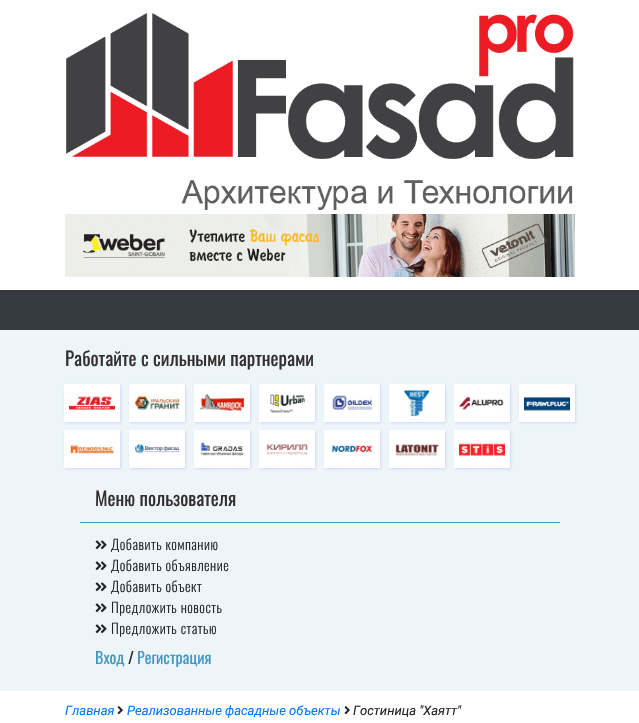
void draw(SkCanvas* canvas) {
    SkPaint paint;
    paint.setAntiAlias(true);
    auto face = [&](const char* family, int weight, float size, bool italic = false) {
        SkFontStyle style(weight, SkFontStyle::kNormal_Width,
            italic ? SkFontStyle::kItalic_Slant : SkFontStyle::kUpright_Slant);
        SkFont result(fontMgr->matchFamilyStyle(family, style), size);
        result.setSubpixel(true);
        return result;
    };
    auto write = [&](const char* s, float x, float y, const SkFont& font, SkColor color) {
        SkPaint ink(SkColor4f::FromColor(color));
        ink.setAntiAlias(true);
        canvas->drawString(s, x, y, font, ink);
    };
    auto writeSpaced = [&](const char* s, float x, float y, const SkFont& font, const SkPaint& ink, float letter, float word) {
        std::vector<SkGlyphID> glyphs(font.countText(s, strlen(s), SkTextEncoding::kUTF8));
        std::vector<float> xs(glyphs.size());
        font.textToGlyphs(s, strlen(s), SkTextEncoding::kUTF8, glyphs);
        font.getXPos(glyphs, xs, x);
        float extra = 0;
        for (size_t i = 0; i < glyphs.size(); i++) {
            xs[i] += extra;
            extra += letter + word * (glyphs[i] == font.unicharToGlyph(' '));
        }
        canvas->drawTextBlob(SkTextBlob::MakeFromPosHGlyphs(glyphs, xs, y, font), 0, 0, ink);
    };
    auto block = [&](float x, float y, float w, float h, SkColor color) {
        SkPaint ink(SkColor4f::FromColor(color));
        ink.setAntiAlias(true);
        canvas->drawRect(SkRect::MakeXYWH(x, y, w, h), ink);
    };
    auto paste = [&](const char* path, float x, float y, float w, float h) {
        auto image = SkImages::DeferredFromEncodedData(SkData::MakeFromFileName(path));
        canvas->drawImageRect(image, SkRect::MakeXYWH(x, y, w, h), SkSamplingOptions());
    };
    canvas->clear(SK_ColorWHITE);
    paste("pic1.png", 66, 13, 508, 197);
    paste("pic2.png", 65, 214, 510, 63);
    block(0, 290, 639, 40, SkColorSetRGB(52, 58, 64));
    block(0, 330, 639, 361, SkColorSetRGB(237, 245, 249));
    auto kFont1 = face("Oswald", 400, 19);
    write("Работайте с сильными партнерами", 65, 366, kFont1, SkColorSetRGB(51, 47, 46));
    paint.setColor(SkColorSetARGB(89, 157, 157, 255));
    paint.setMaskFilter(SkMaskFilter::MakeBlur(kNormal_SkBlurStyle, 1));
    canvas->drawRect(SkRect::MakeXYWH(65, 385, 56, 38), paint);
    paint.setMaskFilter(nullptr);
    block(64, 384, 56, 38, SK_ColorWHITE);
    paste("pic3.png", 69, 396, 46, 14);
    paint.setMaskFilter(SkMaskFilter::MakeBlur(kNormal_SkBlurStyle, 1));
    canvas->drawRect(SkRect::MakeXYWH(130, 385, 56, 38), paint);
    paint.setMaskFilter(nullptr);
    block(129, 384, 56, 38, SK_ColorWHITE);
    paste("pic4.png", 134, 396, 46, 14);
    paint.setMaskFilter(SkMaskFilter::MakeBlur(kNormal_SkBlurStyle, 1));
    canvas->drawRect(SkRect::MakeXYWH(195, 385, 56, 38), paint);
    paint.setMaskFilter(nullptr);
    block(194, 384, 56, 38, SK_ColorWHITE);
    paste("pic5.png", 199, 393, 46, 19);
    paint.setMaskFilter(SkMaskFilter::MakeBlur(kNormal_SkBlurStyle, 1));
    canvas->drawRect(SkRect::MakeXYWH(260, 385, 56, 38), paint);
    paint.setMaskFilter(nullptr);
    block(259, 384, 56, 38, SK_ColorWHITE);
    paste("pic6.png", 270, 394, 35, 19);
    paint.setMaskFilter(SkMaskFilter::MakeBlur(kNormal_SkBlurStyle, 1));
    canvas->drawRect(SkRect::MakeXYWH(325, 385, 56, 38), paint);
    paint.setMaskFilter(nullptr);
    block(324, 384, 56, 38, SK_ColorWHITE);
    paste("pic7.png", 332, 395, 41, 15);
    paint.setMaskFilter(SkMaskFilter::MakeBlur(kNormal_SkBlurStyle, 1));
    canvas->drawRect(SkRect::MakeXYWH(390, 385, 56, 38), paint);
    paint.setMaskFilter(nullptr);
    block(389, 384, 56, 38, SK_ColorWHITE);
    paste("pic8.png", 403, 389, 28, 28);
    paint.setMaskFilter(SkMaskFilter::MakeBlur(kNormal_SkBlurStyle, 1));
    canvas->drawRect(SkRect::MakeXYWH(455, 385, 56, 38), paint);
    paint.setMaskFilter(nullptr);
    block(454, 384, 56, 38, SK_ColorWHITE);
    paste("pic9.png", 459, 396, 45, 14);
    paint.setMaskFilter(SkMaskFilter::MakeBlur(kNormal_SkBlurStyle, 1));
    canvas->drawRect(SkRect::MakeXYWH(520, 385, 56, 38), paint);
    paint.setMaskFilter(nullptr);
    block(519, 384, 56, 38, SK_ColorWHITE);
    paste("pic10.png", 524, 397, 46, 14);
    paint.setMaskFilter(SkMaskFilter::MakeBlur(kNormal_SkBlurStyle, 1));
    canvas->drawRect(SkRect::MakeXYWH(65, 431, 56, 38), paint);
    paint.setMaskFilter(nullptr);
    block(64, 430, 56, 38, SK_ColorWHITE);
    paste("pic11.png", 70, 444, 45, 10);
    paint.setMaskFilter(SkMaskFilter::MakeBlur(kNormal_SkBlurStyle, 1));
    canvas->drawRect(SkRect::MakeXYWH(130, 431, 56, 38), paint);
    paint.setMaskFilter(nullptr);
    block(129, 430, 56, 38, SK_ColorWHITE);
    paste("pic12.png", 134, 444, 46, 10);
    paint.setMaskFilter(SkMaskFilter::MakeBlur(kNormal_SkBlurStyle, 1));
    canvas->drawRect(SkRect::MakeXYWH(195, 431, 56, 38), paint);
    paint.setMaskFilter(nullptr);
    block(194, 430, 56, 38, SK_ColorWHITE);
    paste("pic13.png", 200, 442, 44, 14);
    paint.setMaskFilter(SkMaskFilter::MakeBlur(kNormal_SkBlurStyle, 1));
    canvas->drawRect(SkRect::MakeXYWH(260, 431, 56, 38), paint);
    paint.setMaskFilter(nullptr);
    block(259, 430, 56, 38, SK_ColorWHITE);
    paste("pic14.png", 266, 444, 42, 11);
    paint.setMaskFilter(SkMaskFilter::MakeBlur(kNormal_SkBlurStyle, 1));
    canvas->drawRect(SkRect::MakeXYWH(325, 431, 56, 38), paint);
    paint.setMaskFilter(nullptr);
    block(324, 430, 56, 38, SK_ColorWHITE);
    paste("pic15.png", 330, 445, 43, 8);
    paint.setMaskFilter(SkMaskFilter::MakeBlur(kNormal_SkBlurStyle, 1));
    canvas->drawRect(SkRect::MakeXYWH(390, 431, 56, 38), paint);
    paint.setMaskFilter(nullptr);
    block(389, 430, 56, 38, SK_ColorWHITE);
    paste("pic16.png", 395, 444, 44, 12);
    paint.setMaskFilter(SkMaskFilter::MakeBlur(kNormal_SkBlurStyle, 1));
    canvas->drawRect(SkRect::MakeXYWH(455, 431, 56, 38), paint);
    paint.setMaskFilter(nullptr);
    block(454, 430, 56, 38, SK_ColorWHITE);
    paste("pic17.png", 459, 443, 46, 13);
    block(80, 522, 480, 1, SkColorSetRGB(67, 152, 191));
    write("Меню пользователя", 95, 506, kFont1, SkColorSetRGB(51, 47, 46));
    paste("pic18.png", 95, 540, 12, 10);
    auto kFont2 = face("Oswald", 300, 14);
    paint.setColor(SkColorSetRGB(33, 37, 41));
    writeSpaced("Добавить компанию", 111, 550, kFont2, paint, 0.5f, 0);
    paste("pic18.png", 95, 561, 12, 10);
    writeSpaced("Добавить объявление", 111, 571, kFont2, paint, 0.5f, 0);
    paste("pic18.png", 95, 582, 12, 10);
    writeSpaced("Добавить объект", 111, 592, kFont2, paint, 0.5f, 0);
    paste("pic18.png", 95, 603, 12, 10);
    writeSpaced("Предложить новость", 111, 613, kFont2, paint, 0.5f, 0);
    paste("pic18.png", 95, 624, 12, 10);
    writeSpaced("Предложить статью", 111, 634, kFont2, paint, 0.5f, 0);
    auto kFont3 = face("Oswald", 400, 16);
    write("Вход", 95, 664, kFont3, SkColorSetRGB(67, 152, 191));
    write("/", 128, 664, kFont3, SkColorSetRGB(33, 37, 41));
    write("Регистрация", 137, 664, kFont3, SkColorSetRGB(67, 152, 191));
    auto kFont4 = face("Roboto", 400, 13, true);
    write("Главная", 65, 715, kFont4, SkColorSetRGB(0, 123, 255));
    paste("pic19.png", 117, 706, 6, 9);
    write("Реализованные фасадные объекты", 127, 715, kFont4, SkColorSetRGB(0, 123, 255));
    paste("pic19.png", 344, 706, 6, 9);
    write("Гостиница \"Хаятт\"", 353, 715, kFont4, SkColorSetRGB(33, 37, 41));
}
